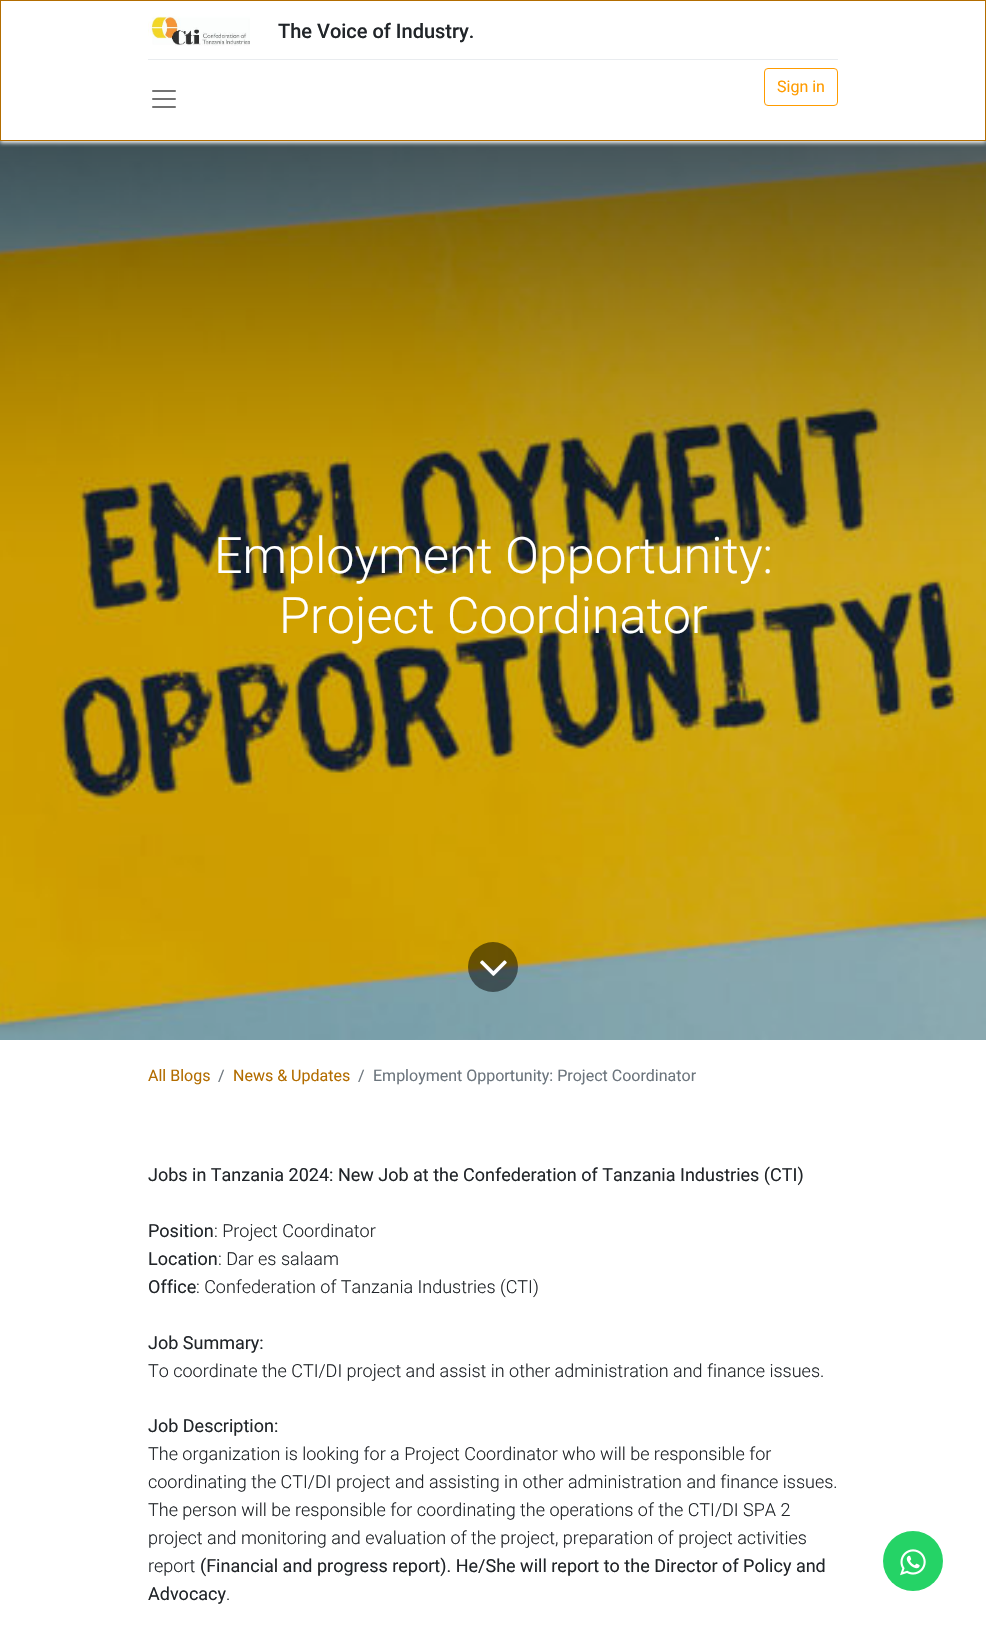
void draw(SkCanvas* canvas) {
    SkPaint paint;
    paint.setAntiAlias(true);
    auto face = [&](const char* family, int weight, float size, bool italic = false) {
        SkFontStyle style(weight, SkFontStyle::kNormal_Width,
            italic ? SkFontStyle::kItalic_Slant : SkFontStyle::kUpright_Slant);
        SkFont result(fontMgr->matchFamilyStyle(family, style), size);
        result.setSubpixel(true);
        return result;
    };
    auto write = [&](const char* s, float x, float y, const SkFont& font, SkColor color) {
        SkPaint ink(SkColor4f::FromColor(color));
        ink.setAntiAlias(true);
        canvas->drawString(s, x, y, font, ink);
    };
    auto block = [&](float x, float y, float w, float h, SkColor color) {
        SkPaint ink(SkColor4f::FromColor(color));
        ink.setAntiAlias(true);
        canvas->drawRect(SkRect::MakeXYWH(x, y, w, h), ink);
    };
    auto paste = [&](const char* path, float x, float y, float w, float h) {
        auto image = SkImages::DeferredFromEncodedData(SkData::MakeFromFileName(path));
        canvas->drawImageRect(image, SkRect::MakeXYWH(x, y, w, h), SkSamplingOptions());
    };
    canvas->clear(SK_ColorWHITE);
    paste("pic3.png", 0, 141, 986, 899);
    canvas->save();
    canvas->clipRect(SkRect::MakeXYWH(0, 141, 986, 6));
    paint.setColor(SkColorSetRGB(244, 245, 245));
    paint.setMaskFilter(SkMaskFilter::MakeBlur(kNormal_SkBlurStyle, 2));
    canvas->drawRect(SkRect::MakeXYWH(0, 2, 986, 141), paint);
    paint.setMaskFilter(nullptr);
    canvas->restore();
    paint.setStyle(SkPaint::kStroke_Style);
    paint.setStrokeWidth(1);
    paint.setColor(SkColorSetRGB(179, 109, 0));
    canvas->drawRect(SkRect::MakeXYWH(0.5f, 0.5f, 985, 140), paint);
    paste("pic1.png", 148, 16, 102, 30);
    auto kFont1 = face("Roboto", 500, 20);
    write("The Voice of Industry.", 278, 38, kFont1, SkColorSetRGB(33, 37, 41));
    block(148, 59, 690, 1, SkColorSetRGB(233, 236, 239));
    paint.setColor(SkColorSetRGB(255, 156, 0));
    canvas->drawRoundRect(SkRect::MakeXYWH(764.5f, 68.5f, 73, 37), 3.5f, 3.5f, paint);
    auto kFont2 = face("Roboto", 400, 16);
    write("Sign in", 777, 92, kFont2, SkColorSetRGB(255, 156, 0));
    paste("pic2.png", 152, 90, 24, 18);
    auto kFont3 = face("Roboto", 300, 50.25f);
    write("Employment Opportunity:", 214, 573, kFont3, SK_ColorWHITE);
    write("Project Coordinator", 279, 633, kFont3, SK_ColorWHITE);
    paint.setStyle(SkPaint::kFill_Style);
    paint.setColor(SkColorSetARGB(128, 0, 0, 0));
    canvas->drawCircle(493, 967, 25, paint);
    paste("pic4.png", 480, 960, 27, 16);
    write("All Blogs", 148, 1081, kFont2, SkColorSetRGB(179, 109, 0));
    write("/", 218, 1081, kFont2, SkColorSetRGB(108, 117, 125));
    write("News & Updates", 233, 1081, kFont2, SkColorSetRGB(179, 109, 0));
    write("/", 358, 1081, kFont2, SkColorSetRGB(108, 117, 125));
    write("Employment Opportunity: Project Coordinator", 373, 1081, kFont2, SkColorSetRGB(108, 117, 125));
    auto kFont4 = face("Roboto", 400, 18);
    write("Jobs in Tanzania 2024: New Job at the Confederation of Tanzania Industries (CTI)", 148, 1181, kFont4, SkColorSetRGB(33, 37, 41));
    write("Position", 148, 1237, kFont4, SkColorSetRGB(33, 37, 41));
    auto kFont5 = face("Roboto", 300, 18);
    write(": Project Coordinator", 214, 1237, kFont5, SkColorSetRGB(33, 37, 41));
    write("Location", 148, 1265, kFont4, SkColorSetRGB(33, 37, 41));
    write(": Dar es salaam", 218, 1265, kFont5, SkColorSetRGB(33, 37, 41));
    write("Office", 148, 1293, kFont4, SkColorSetRGB(33, 37, 41));
    write(": Confederation of Tanzania Industries (CTI)", 196, 1293, kFont5, SkColorSetRGB(33, 37, 41));
    write("Job Summary:", 148, 1349, kFont4, SkColorSetRGB(33, 37, 41));
    write("To coordinate the CTI/DI project and assist in other administration and finance issues.", 148, 1377, kFont5, SkColorSetRGB(33, 37, 41));
    write("Job Description:", 148, 1432, kFont4, SkColorSetRGB(33, 37, 41));
    write("The organization is looking for a Project Coordinator who will be responsible for", 148, 1460, kFont5, SkColorSetRGB(33, 37, 41));
    write("coordinating the CTI/DI project and assisting in other administration and finance issues.", 148, 1488, kFont5, SkColorSetRGB(33, 37, 41));
    write("The person will be responsible for coordinating the operations of the CTI/DI SPA 2", 148, 1516, kFont5, SkColorSetRGB(33, 37, 41));
    write("project and monitoring and evaluation of the project, preparation of project activities", 148, 1544, kFont5, SkColorSetRGB(33, 37, 41));
    write("report", 148, 1572, kFont5, SkColorSetRGB(33, 37, 41));
    write("(Financial and progress report). He/She will report to the Director of Policy and", 200, 1572, kFont4, SkColorSetRGB(33, 37, 41));
    write("Advocacy", 148, 1600, kFont4, SkColorSetRGB(33, 37, 41));
    write(".", 226, 1600, kFont5, SkColorSetRGB(33, 37, 41));
    paint.setColor(SkColorSetRGB(37, 211, 102));
    canvas->drawCircle(913, 1561, 30, paint);
    paste("pic5.png", 900, 1549, 26, 27);
}
